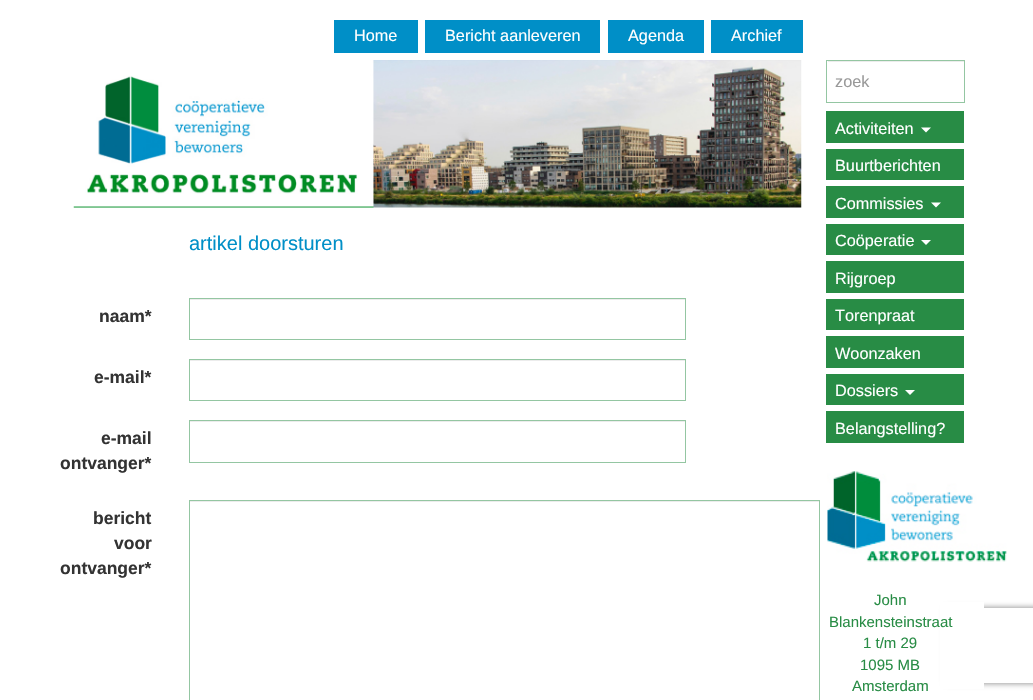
void draw(SkCanvas* canvas) {
    SkPaint paint;
    paint.setAntiAlias(true);
    auto face = [&](const char* family, int weight, float size, bool italic = false) {
        SkFontStyle style(weight, SkFontStyle::kNormal_Width,
            italic ? SkFontStyle::kItalic_Slant : SkFontStyle::kUpright_Slant);
        SkFont result(fontMgr->matchFamilyStyle(family, style), size);
        result.setSubpixel(true);
        return result;
    };
    auto write = [&](const char* s, float x, float y, const SkFont& font, SkColor color) {
        SkPaint ink(SkColor4f::FromColor(color));
        ink.setAntiAlias(true);
        canvas->drawString(s, x, y, font, ink);
    };
    auto block = [&](float x, float y, float w, float h, SkColor color) {
        SkPaint ink(SkColor4f::FromColor(color));
        ink.setAntiAlias(true);
        canvas->drawRect(SkRect::MakeXYWH(x, y, w, h), ink);
    };
    auto paste = [&](const char* path, float x, float y, float w, float h) {
        auto image = SkImages::DeferredFromEncodedData(SkData::MakeFromFileName(path));
        canvas->drawImageRect(image, SkRect::MakeXYWH(x, y, w, h), SkSamplingOptions());
    };
    canvas->clear(SK_ColorWHITE);
    block(334, 20, 84, 33, SkColorSetRGB(0, 143, 199));
    auto kFont1 = face("Liberation Sans", 400, 16.25f);
    write("Home", 354, 41, kFont1, SK_ColorWHITE);
    block(425, 20, 175, 33, SkColorSetRGB(0, 143, 199));
    write("Bericht aanleveren", 445, 41, kFont1, SK_ColorWHITE);
    block(608, 20, 96, 33, SkColorSetRGB(0, 143, 199));
    write("Agenda", 628, 41, kFont1, SK_ColorWHITE);
    block(711, 20, 92, 33, SkColorSetRGB(0, 143, 199));
    write("Archief", 731, 41, kFont1, SK_ColorWHITE);
    paste("pic1.png", 73, 60, 729, 148);
    auto kFont2 = face("Liberation Sans", 400, 20);
    write("artikel doorsturen", 189, 250, kFont2, SkColorSetRGB(0, 143, 199));
    auto kFont3 = face("Liberation Sans", 700, 17.5f);
    write("naam*", 99, 322, kFont3, SkColorSetRGB(51, 51, 51));
    block(190, 299, 495, 1, SkColorSetRGB(236, 236, 236));
    paint.setStyle(SkPaint::kStroke_Style);
    paint.setStrokeWidth(1);
    paint.setColor(SkColorSetRGB(148, 198, 162));
    canvas->drawRect(SkRect::MakeXYWH(189.5f, 298.5f, 496, 41), paint);
    write("e-mail*", 94, 383, kFont3, SkColorSetRGB(51, 51, 51));
    block(190, 360, 495, 1, SkColorSetRGB(236, 236, 236));
    canvas->drawRect(SkRect::MakeXYWH(189.5f, 359.5f, 496, 41), paint);
    write("e-mail", 101, 444, kFont3, SkColorSetRGB(51, 51, 51));
    write("ontvanger*", 60, 469, kFont3, SkColorSetRGB(51, 51, 51));
    block(190, 421, 495, 1, SkColorSetRGB(236, 236, 236));
    canvas->drawRect(SkRect::MakeXYWH(189.5f, 420.5f, 496, 42), paint);
    write("bericht", 93, 524, kFont3, SkColorSetRGB(51, 51, 51));
    write("voor", 114, 549, kFont3, SkColorSetRGB(51, 51, 51));
    write("ontvanger*", 60, 574, kFont3, SkColorSetRGB(51, 51, 51));
    block(190, 501, 629, 1, SkColorSetRGB(236, 236, 236));
    canvas->drawRect(SkRect::MakeXYWH(189.5f, 500.5f, 630, 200), paint);
    canvas->save();
    canvas->clipPath(SkPathBuilder(SkPathFillType::kEvenOdd).moveTo(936, 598).lineTo(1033, 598).lineTo(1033, 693).lineTo(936, 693).close().moveTo(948.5f, 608).lineTo(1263.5f, 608).cubicTo(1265, 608, 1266, 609, 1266, 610.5f).lineTo(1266, 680.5f).cubicTo(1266, 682, 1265, 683, 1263.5f, 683).lineTo(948.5f, 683).cubicTo(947, 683, 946, 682, 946, 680.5f).lineTo(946, 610.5f).cubicTo(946, 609, 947, 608, 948.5f, 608).close().detach(), true);
    paint.setStyle(SkPaint::kFill_Style);
    paint.setColor(SkColorSetRGB(128, 128, 128));
    paint.setMaskFilter(SkMaskFilter::MakeBlur(kNormal_SkBlurStyle, 3));
    canvas->drawRoundRect(SkRect::MakeXYWH(946, 608, 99, 75), 2.5f, 2.5f, paint);
    paint.setMaskFilter(nullptr);
    canvas->restore();
    block(940, 602, 44, 87, SK_ColorWHITE);
    block(828, 61, 136, 1, SkColorSetRGB(236, 236, 236));
    paint.setStyle(SkPaint::kStroke_Style);
    paint.setColor(SkColorSetRGB(148, 198, 162));
    canvas->drawRect(SkRect::MakeXYWH(826.5f, 60.5f, 138, 42), paint);
    write("zoek", 835, 87, kFont1, SkColorSetRGB(153, 153, 153));
    block(826, 111, 138, 32, SkColorSetRGB(40, 140, 69));
    write("Activiteiten", 835, 134, kFont1, SK_ColorWHITE);
    paint.setStyle(SkPaint::kFill_Style);
    paint.setColor(SK_ColorWHITE);
    canvas->drawPath(SkPathBuilder().moveTo(921, 127.5f).lineTo(931, 127.5f).lineTo(926, 132.5f).close().detach(), paint);
    block(826, 149, 138, 31, SkColorSetRGB(40, 140, 69));
    write("Buurtberichten", 835, 171, kFont1, SK_ColorWHITE);
    block(826, 186, 138, 32, SkColorSetRGB(40, 140, 69));
    write("Commissies", 835, 209, kFont1, SK_ColorWHITE);
    canvas->drawPath(SkPathBuilder().moveTo(931, 202.5f).lineTo(941, 202.5f).lineTo(936, 207.5f).close().detach(), paint);
    block(826, 224, 138, 31, SkColorSetRGB(40, 140, 69));
    write("Coöperatie", 835, 246, kFont1, SK_ColorWHITE);
    canvas->drawPath(SkPathBuilder().moveTo(921, 240).lineTo(931, 240).lineTo(926, 245).close().detach(), paint);
    block(826, 261, 138, 32, SkColorSetRGB(40, 140, 69));
    write("Rijgroep", 835, 284, kFont1, SK_ColorWHITE);
    block(826, 299, 138, 31, SkColorSetRGB(40, 140, 69));
    write("Torenpraat", 835, 321, kFont1, SK_ColorWHITE);
    block(826, 336, 138, 32, SkColorSetRGB(40, 140, 69));
    write("Woonzaken", 835, 359, kFont1, SK_ColorWHITE);
    block(826, 374, 138, 31, SkColorSetRGB(40, 140, 69));
    write("Dossiers", 835, 396, kFont1, SK_ColorWHITE);
    canvas->drawPath(SkPathBuilder().moveTo(905, 390).lineTo(915, 390).lineTo(910, 395).close().detach(), paint);
    block(826, 411, 138, 32, SkColorSetRGB(40, 140, 69));
    write("Belangstelling?", 835, 434, kFont1, SK_ColorWHITE);
    paste("pic2.png", 827, 471, 180, 91);
    auto kFont4 = face("Liberation Sans", 400, 15);
    write("John", 874, 605, kFont4, SkColorSetRGB(40, 140, 69));
    write("Blankensteinstraat", 829, 627, kFont4, SkColorSetRGB(40, 140, 69));
    write("1 t/m 29", 863, 648, kFont4, SkColorSetRGB(40, 140, 69));
    write("1095 MB", 860, 670, kFont4, SkColorSetRGB(40, 140, 69));
    write("Amsterdam", 852, 691, kFont4, SkColorSetRGB(40, 140, 69));
}
